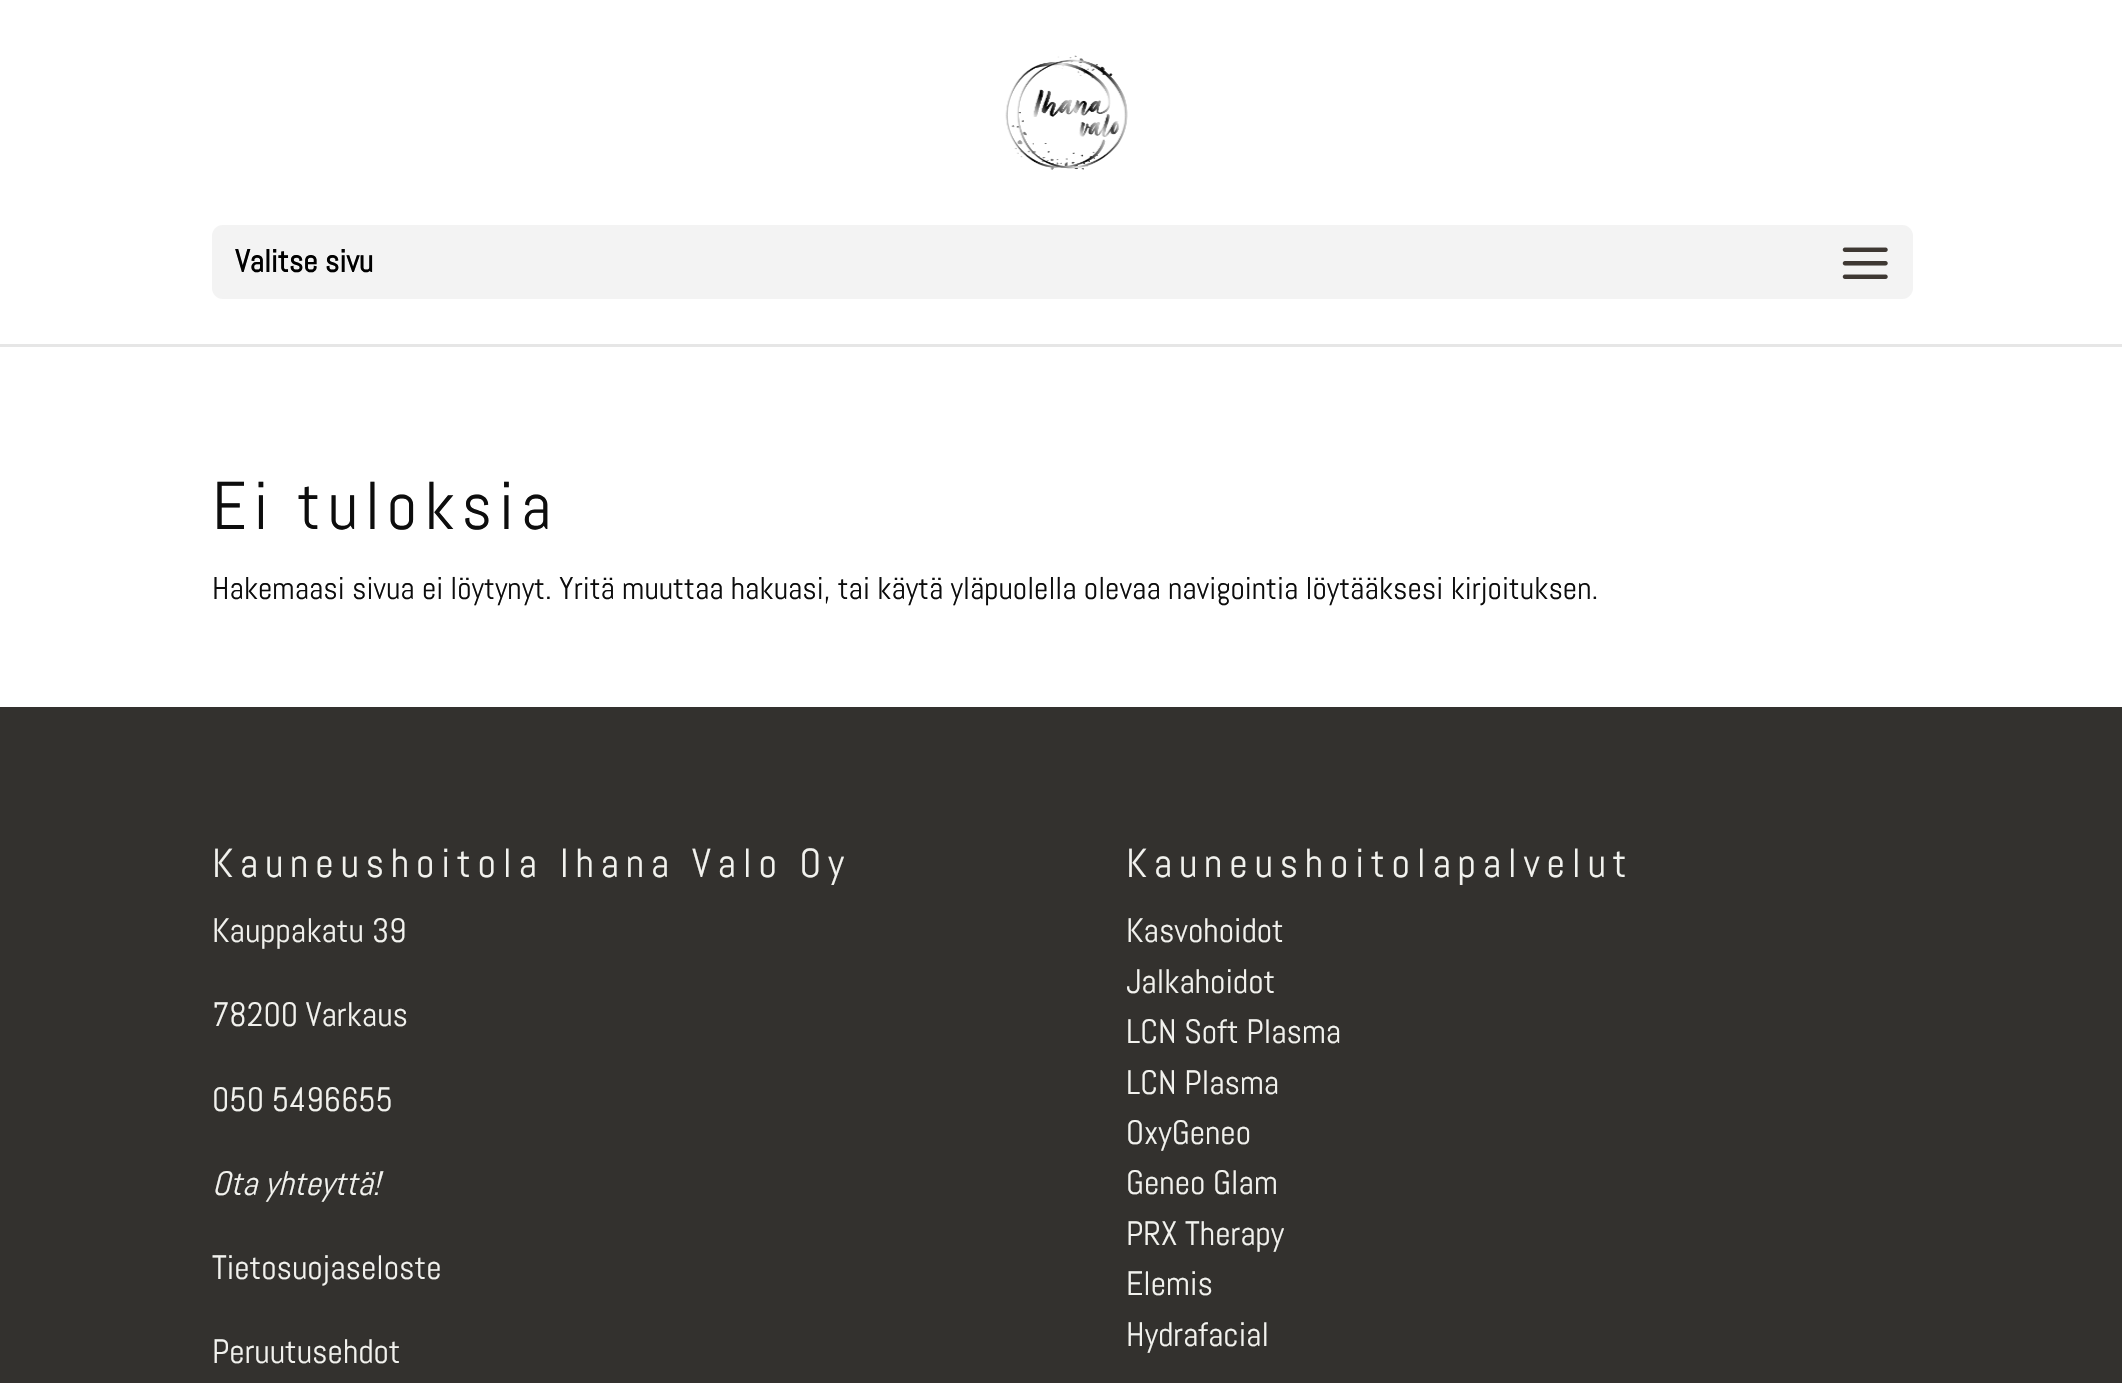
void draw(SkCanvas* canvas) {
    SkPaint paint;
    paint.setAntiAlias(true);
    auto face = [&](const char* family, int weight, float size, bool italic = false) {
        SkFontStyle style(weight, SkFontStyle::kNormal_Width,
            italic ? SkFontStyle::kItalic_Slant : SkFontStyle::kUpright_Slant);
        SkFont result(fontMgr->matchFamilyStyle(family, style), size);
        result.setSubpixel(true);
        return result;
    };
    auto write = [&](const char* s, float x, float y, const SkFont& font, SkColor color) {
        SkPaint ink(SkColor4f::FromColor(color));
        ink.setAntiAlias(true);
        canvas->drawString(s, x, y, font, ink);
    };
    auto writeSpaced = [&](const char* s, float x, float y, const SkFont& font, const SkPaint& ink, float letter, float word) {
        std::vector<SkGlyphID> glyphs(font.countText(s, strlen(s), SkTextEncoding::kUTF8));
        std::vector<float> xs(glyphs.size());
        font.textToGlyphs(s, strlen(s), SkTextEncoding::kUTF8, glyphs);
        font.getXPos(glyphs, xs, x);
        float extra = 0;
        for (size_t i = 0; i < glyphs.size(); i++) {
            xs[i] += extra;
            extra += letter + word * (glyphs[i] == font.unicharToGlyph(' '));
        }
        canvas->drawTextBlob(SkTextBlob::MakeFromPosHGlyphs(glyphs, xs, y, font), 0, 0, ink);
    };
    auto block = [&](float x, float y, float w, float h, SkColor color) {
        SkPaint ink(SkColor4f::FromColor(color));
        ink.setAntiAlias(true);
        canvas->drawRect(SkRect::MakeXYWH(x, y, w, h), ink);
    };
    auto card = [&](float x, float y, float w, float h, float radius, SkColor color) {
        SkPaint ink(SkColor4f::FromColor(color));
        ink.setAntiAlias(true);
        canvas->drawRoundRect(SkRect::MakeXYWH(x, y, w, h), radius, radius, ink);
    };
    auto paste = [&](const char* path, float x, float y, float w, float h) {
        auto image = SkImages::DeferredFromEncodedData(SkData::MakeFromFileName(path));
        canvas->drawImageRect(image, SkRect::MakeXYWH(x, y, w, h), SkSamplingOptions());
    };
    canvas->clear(SK_ColorWHITE);
    block(0, 344, 2122, 3, SkColorSetRGB(230, 230, 230));
    paste("pic1.png", 1005, 55, 123, 115);
    card(212, 225, 1701, 74, 11, SkColorSetRGB(243, 243, 243));
    auto kFont1 = face("Abel", 700, 31.5f);
    write("Valitse sivu", 235, 272, kFont1, SK_ColorBLACK);
    paste("pic2.png", 1842, 247, 46, 32);
    auto kFont2 = face("Abel", 400, 67.5f);
    paint.setColor(SkColorSetRGB(13, 13, 13));
    writeSpaced("Ei tuloksia", 212, 529, kFont2, paint, 6.75f, 0);
    auto kFont3 = face("Abel", 400, 31.5f);
    write("Hakemaasi sivua ei löytynyt. Yritä muuttaa hakuasi, tai käytä yläpuolella olevaa navigointia löytääksesi kirjoituksen.", 212, 599, kFont3, SkColorSetRGB(13, 13, 13));
    block(0, 707, 2122, 676, SkColorSetRGB(51, 49, 46));
    auto kFont4 = face("Abel", 400, 40.5f);
    paint.setColor(SkColorSetRGB(242, 242, 238));
    writeSpaced("Kauneushoitola Ihana Valo Oy", 212, 877, kFont4, paint, 6.75f, 0);
    auto kFont5 = face("Abel", 400, 33.75f);
    write("Kauppakatu 39", 212, 942, kFont5, SkColorSetRGB(242, 242, 238));
    write("78200 Varkaus", 212, 1026, kFont5, SkColorSetRGB(242, 242, 238));
    write("050 5496655", 212, 1111, kFont5, SkColorSetRGB(242, 242, 238));
    auto kFont6 = face("Abel", 400, 33.75f, true);
    write("Ota yhteyttä!", 212, 1195, kFont6, SkColorSetRGB(242, 242, 238));
    write("Tietosuojaseloste", 212, 1279, kFont5, SkColorSetRGB(242, 242, 238));
    write("Peruutusehdot", 212, 1363, kFont5, SkColorSetRGB(242, 242, 238));
    writeSpaced("Kauneushoitolapalvelut", 1126, 877, kFont4, paint, 6.75f, 0);
    write("Kasvohoidot", 1126, 942, kFont5, SkColorSetRGB(242, 242, 238));
    write("Jalkahoidot", 1126, 993, kFont5, SkColorSetRGB(242, 242, 238));
    write("LCN Soft Plasma", 1126, 1043, kFont5, SkColorSetRGB(242, 242, 238));
    write("LCN Plasma", 1126, 1094, kFont5, SkColorSetRGB(242, 242, 238));
    write("OxyGeneo", 1126, 1144, kFont5, SkColorSetRGB(242, 242, 238));
    write("Geneo Glam", 1126, 1194, kFont5, SkColorSetRGB(242, 242, 238));
    write("PRX Therapy", 1126, 1245, kFont5, SkColorSetRGB(242, 242, 238));
    write("Elemis", 1126, 1295, kFont5, SkColorSetRGB(242, 242, 238));
    write("Hydrafacial", 1126, 1346, kFont5, SkColorSetRGB(242, 242, 238));
}
